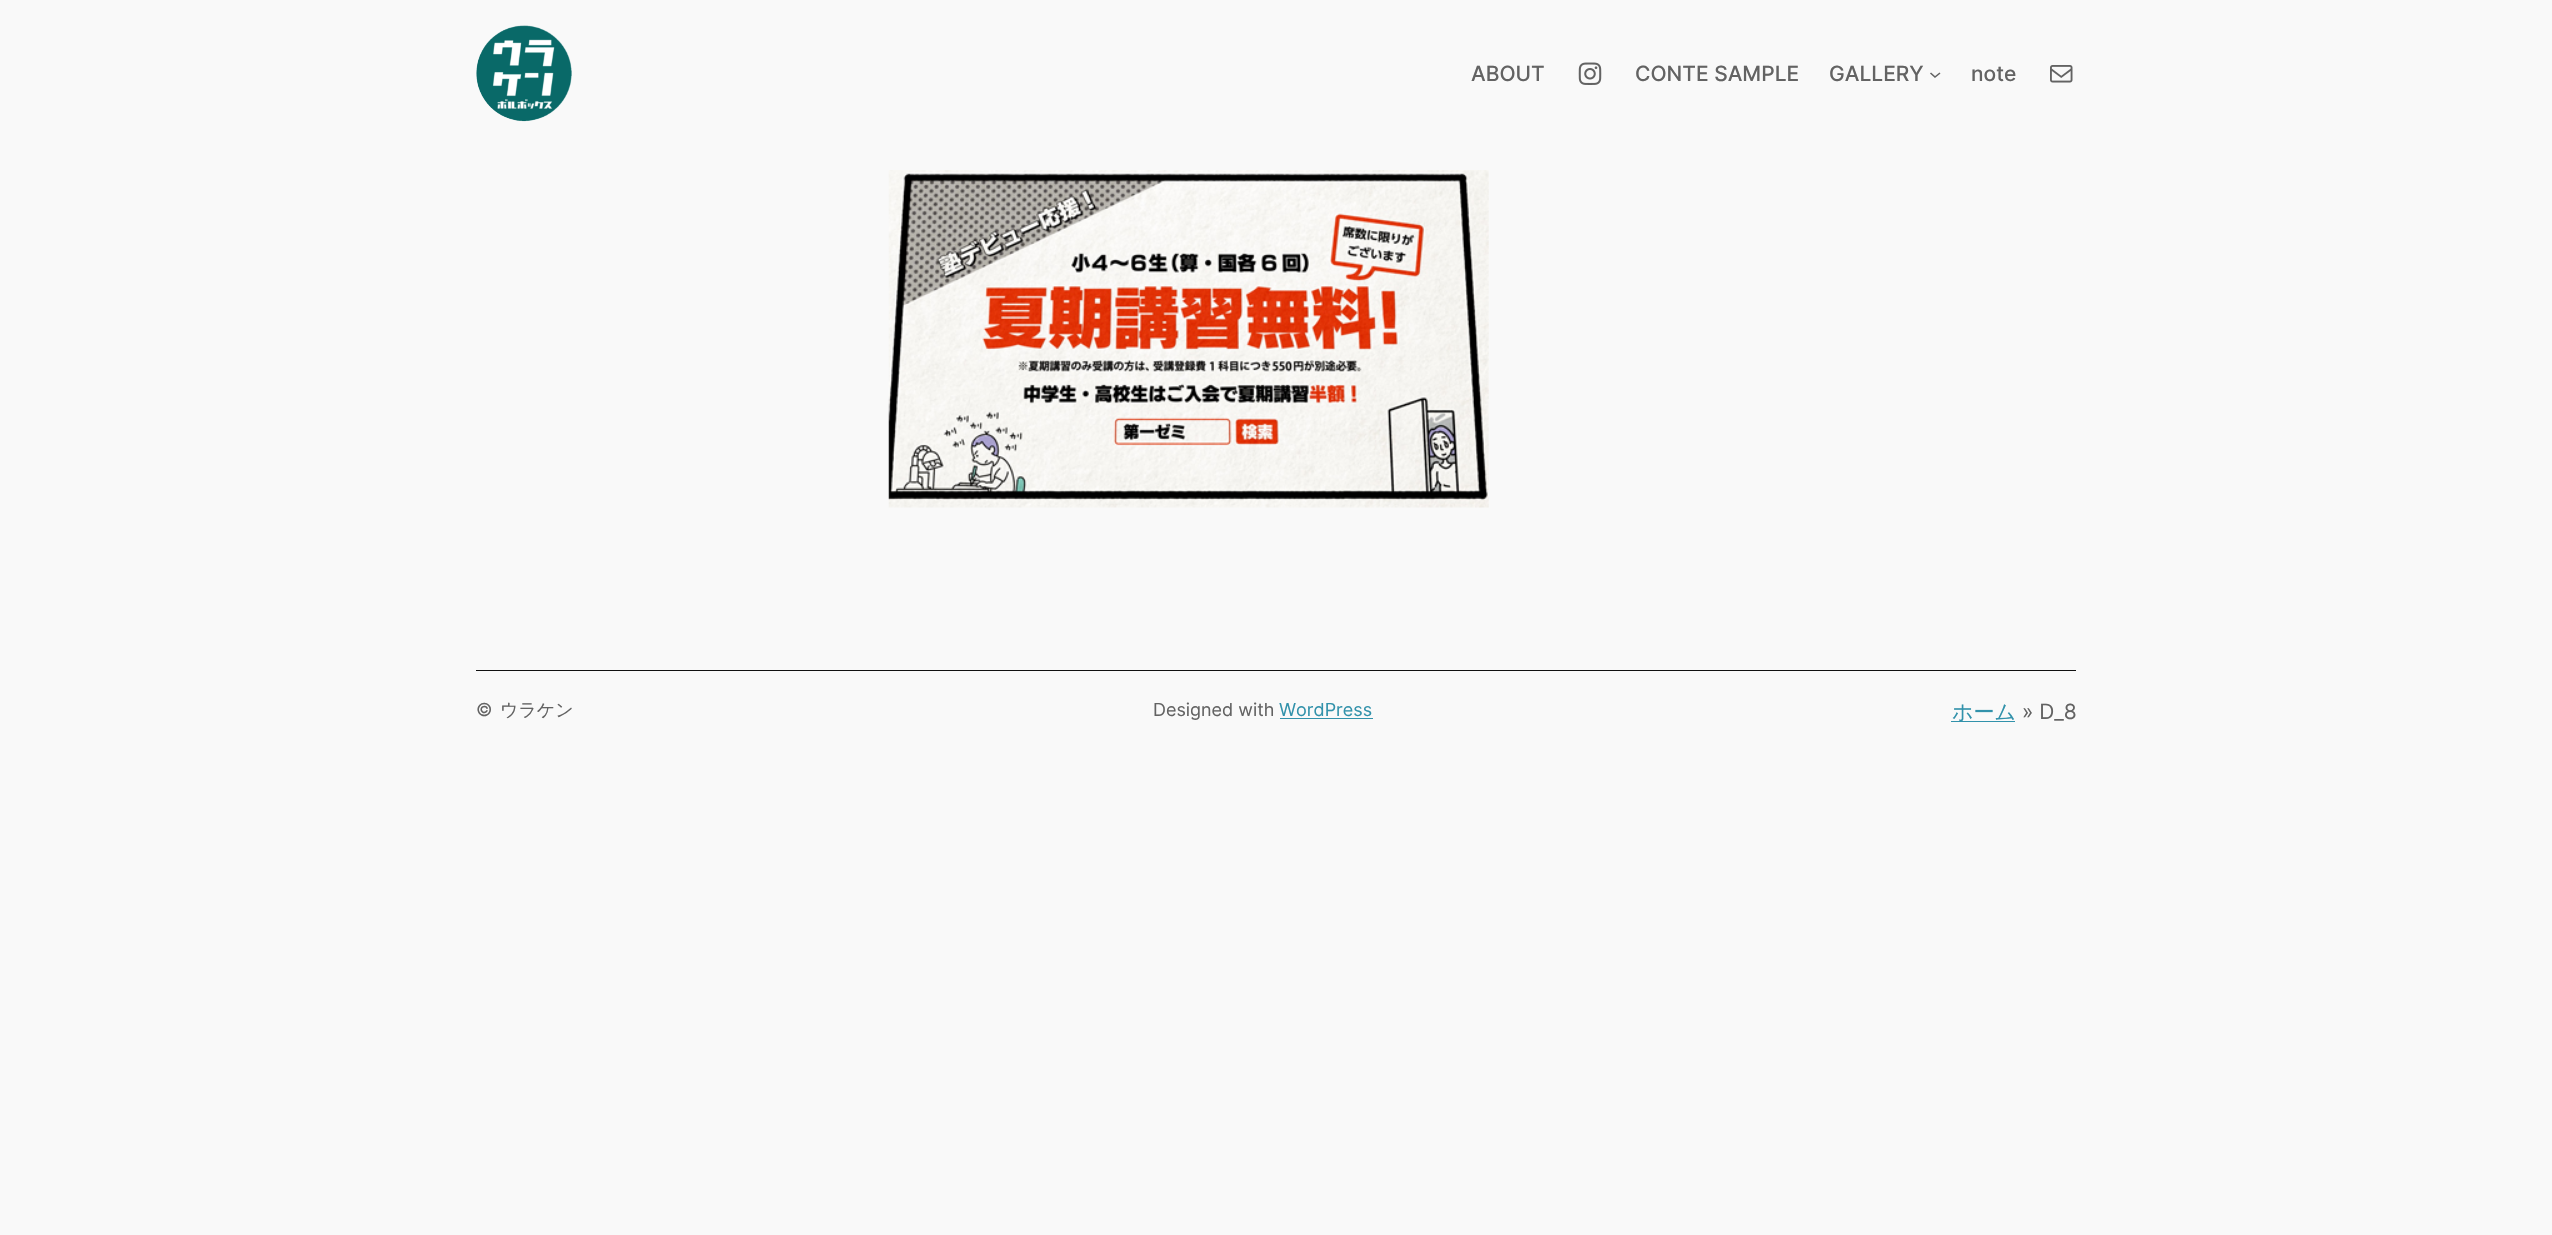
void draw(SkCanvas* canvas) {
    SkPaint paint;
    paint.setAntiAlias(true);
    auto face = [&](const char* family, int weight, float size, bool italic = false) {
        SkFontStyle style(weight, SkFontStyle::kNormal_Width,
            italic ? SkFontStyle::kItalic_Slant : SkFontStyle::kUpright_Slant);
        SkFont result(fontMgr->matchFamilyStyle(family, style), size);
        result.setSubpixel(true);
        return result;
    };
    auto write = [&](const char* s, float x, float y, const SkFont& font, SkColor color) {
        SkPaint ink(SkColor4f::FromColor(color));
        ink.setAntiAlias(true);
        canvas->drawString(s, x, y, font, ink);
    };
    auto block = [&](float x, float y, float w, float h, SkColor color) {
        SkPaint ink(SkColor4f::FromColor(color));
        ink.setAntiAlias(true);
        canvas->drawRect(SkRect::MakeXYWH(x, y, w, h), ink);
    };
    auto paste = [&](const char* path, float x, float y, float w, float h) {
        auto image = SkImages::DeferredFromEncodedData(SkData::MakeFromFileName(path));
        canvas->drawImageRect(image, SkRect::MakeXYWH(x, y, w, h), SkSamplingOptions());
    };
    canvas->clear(SkColorSetRGB(249, 249, 249));
    paste("pic1.png", 476, 25, 96, 97);
    auto kFont1 = face("Inter", 500, 21);
    write("ABOUT", 1471, 81, kFont1, SkColorSetRGB(99, 99, 99));
    paste("pic2.png", 1578, 62, 24, 23);
    write("CONTE SAMPLE", 1635, 81, kFont1, SkColorSetRGB(99, 99, 99));
    write("GALLERY", 1829, 81, kFont1, SkColorSetRGB(99, 99, 99));
    paint.setStyle(SkPaint::kStroke_Style);
    paint.setStrokeWidth(1.6f);
    paint.setColor(SkColorSetRGB(99, 99, 99));
    canvas->drawPath(SkPathBuilder().moveTo(1930.5f, 73).lineTo(1935, 77).lineTo(1940, 73).detach(), paint);
    write("note", 1971, 81, kFont1, SkColorSetRGB(99, 99, 99));
    paste("pic3.png", 2050, 65, 23, 18);
    paste("pic4.png", 888, 170, 601, 338);
    block(476, 670, 1600, 1, SkColorSetRGB(17, 17, 17));
    auto kFont2 = face("Inter", 400, 18);
    write("©", 476, 716, kFont2, SkColorSetRGB(99, 99, 99));
    auto kFont3 = face("WenQuanYi Zen Hei", 500, 18);
    write("ウラケン", 500, 716, kFont3, SkColorSetRGB(99, 99, 99));
    write("Designed with", 1153, 716, kFont2, SkColorSetRGB(99, 99, 99));
    write("WordPress", 1279, 716, kFont2, SkColorSetRGB(50, 146, 171));
    block(1280, 718, 93, 1, SkColorSetRGB(50, 146, 171));
    block(1951, 721, 64, 1, SkColorSetRGB(50, 146, 171));
    auto kFont4 = face("WenQuanYi Zen Hei", 500, 21);
    write("ホーム", 1952, 719, kFont4, SkColorSetRGB(50, 146, 171));
    auto kFont5 = face("Inter", 400, 21);
    write("» D_8", 2022, 719, kFont5, SkColorSetRGB(99, 99, 99));
}
